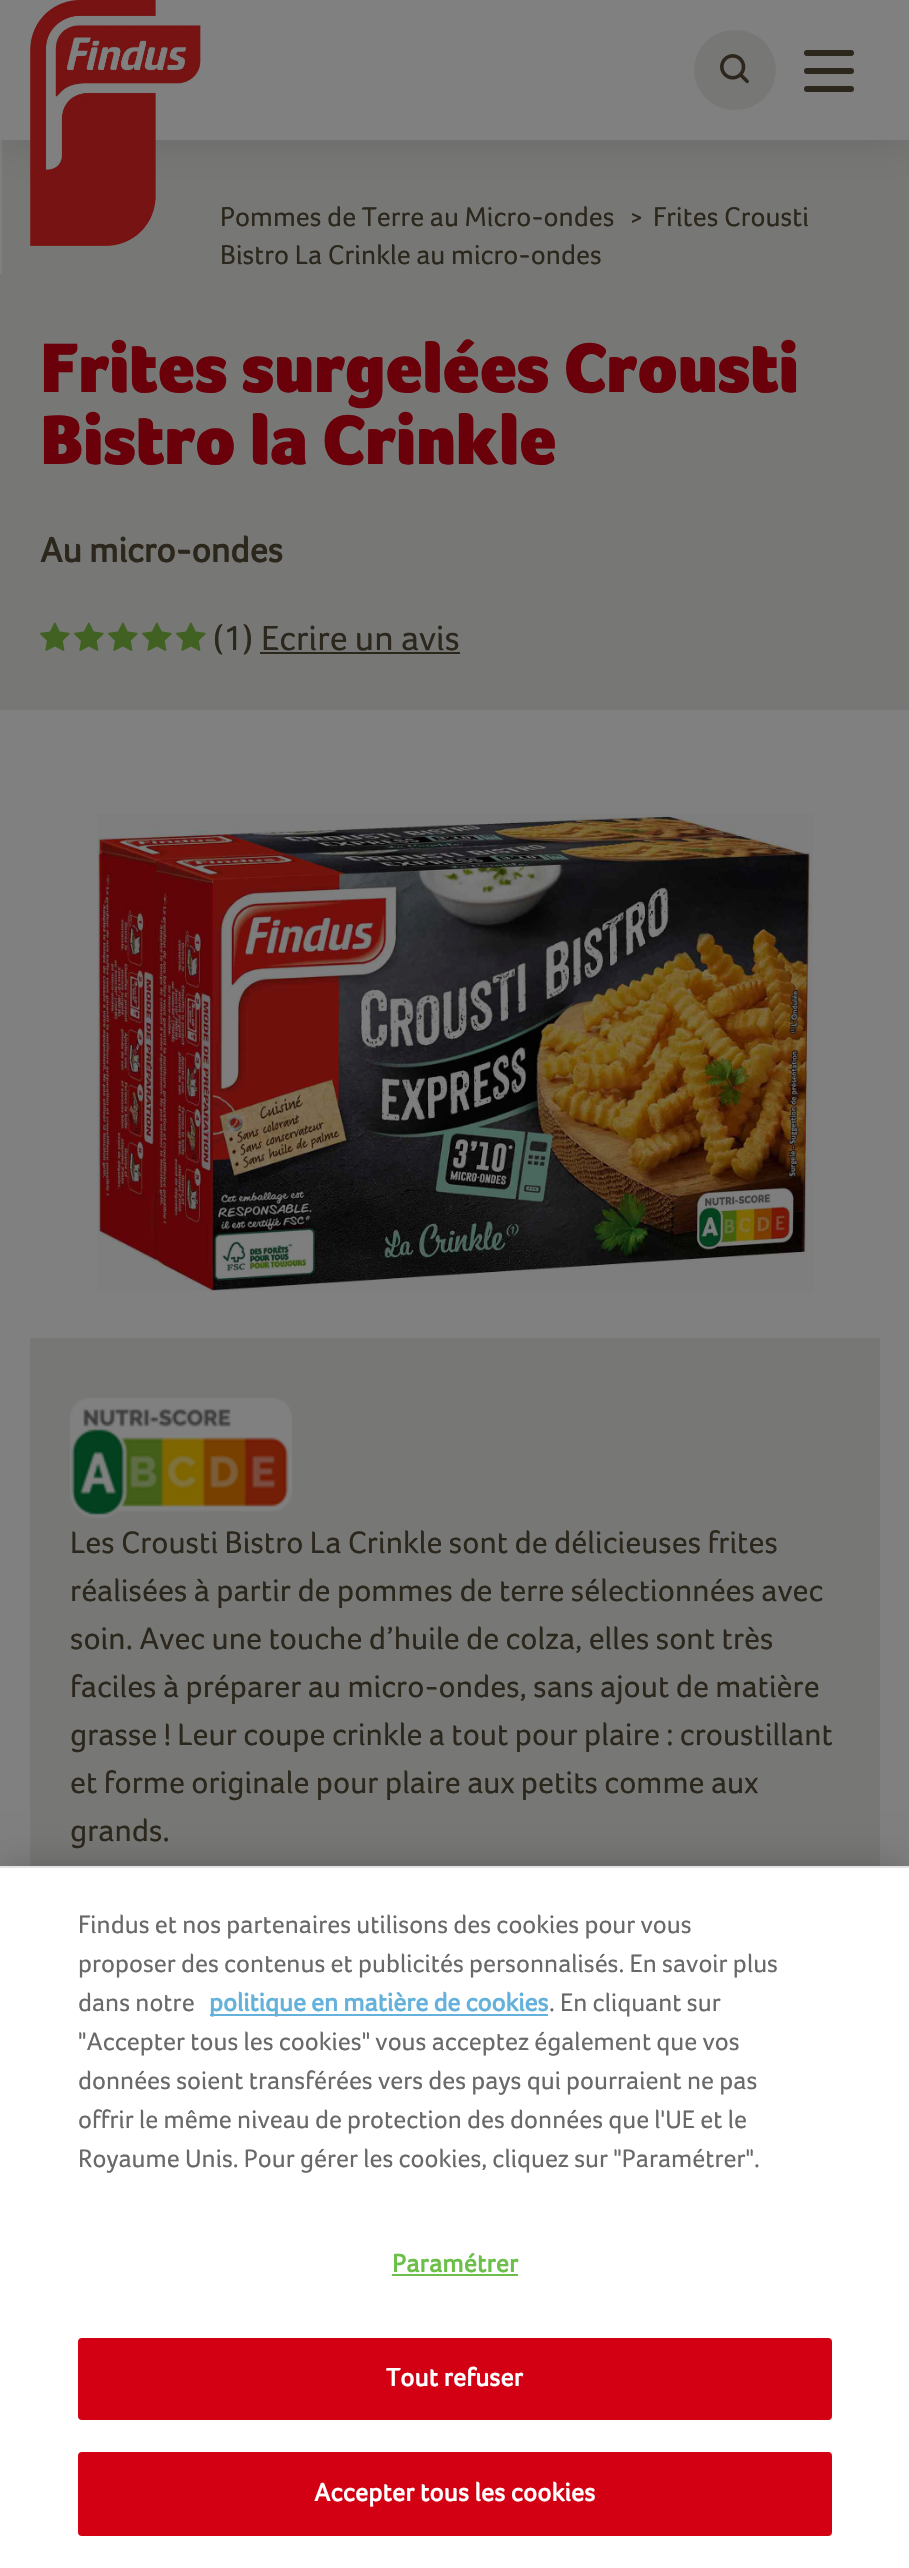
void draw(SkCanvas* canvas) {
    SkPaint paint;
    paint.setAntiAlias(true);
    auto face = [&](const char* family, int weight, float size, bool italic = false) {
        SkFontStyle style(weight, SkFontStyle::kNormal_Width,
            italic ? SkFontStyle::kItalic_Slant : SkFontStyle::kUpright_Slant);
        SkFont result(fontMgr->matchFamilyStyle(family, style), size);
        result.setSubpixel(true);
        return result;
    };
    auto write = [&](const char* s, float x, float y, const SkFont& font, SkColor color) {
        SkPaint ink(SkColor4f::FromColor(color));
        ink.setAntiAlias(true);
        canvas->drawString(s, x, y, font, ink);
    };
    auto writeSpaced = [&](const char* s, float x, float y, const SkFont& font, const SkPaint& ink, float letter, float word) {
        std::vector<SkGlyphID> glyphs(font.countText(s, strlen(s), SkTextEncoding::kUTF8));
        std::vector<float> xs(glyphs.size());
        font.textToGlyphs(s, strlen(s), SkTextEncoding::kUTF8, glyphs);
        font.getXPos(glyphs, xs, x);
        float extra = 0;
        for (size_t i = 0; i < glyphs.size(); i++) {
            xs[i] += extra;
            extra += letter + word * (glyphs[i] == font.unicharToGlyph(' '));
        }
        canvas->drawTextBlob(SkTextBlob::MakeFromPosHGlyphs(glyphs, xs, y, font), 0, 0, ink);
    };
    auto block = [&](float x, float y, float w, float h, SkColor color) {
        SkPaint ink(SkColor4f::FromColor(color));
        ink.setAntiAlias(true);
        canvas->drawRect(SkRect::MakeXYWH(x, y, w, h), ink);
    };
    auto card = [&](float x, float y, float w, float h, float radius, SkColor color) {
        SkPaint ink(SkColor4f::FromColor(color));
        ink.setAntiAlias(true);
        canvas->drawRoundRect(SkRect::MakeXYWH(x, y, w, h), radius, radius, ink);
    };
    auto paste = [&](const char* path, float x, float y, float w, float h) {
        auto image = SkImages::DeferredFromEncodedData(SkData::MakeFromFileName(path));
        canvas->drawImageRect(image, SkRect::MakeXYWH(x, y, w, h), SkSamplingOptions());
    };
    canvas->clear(SkColorSetRGB(128, 128, 128));
    block(2, 140, 907, 134, SkColorSetRGB(119, 119, 118));
    paint.setColor(SkColorSetARGB(26, 0, 0, 0));
    paint.setMaskFilter(SkMaskFilter::MakeBlur(kNormal_SkBlurStyle, 20));
    canvas->drawRect(SkRect::MakeXYWH(0, 4, 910, 140), paint);
    paint.setMaskFilter(nullptr);
    block(0, 0, 909, 140, SkColorSetRGB(128, 128, 128));
    paste("pic1.png", 30, 0, 171, 246);
    card(694, 30, 82, 80, 40, SkColorSetRGB(119, 119, 118));
    paste("pic2.png", 720, 54, 29, 30);
    card(804, 68, 50, 6, 3, SkColorSetRGB(44, 39, 28));
    card(804, 50, 50, 6, 3, SkColorSetRGB(44, 39, 28));
    card(804, 86, 50, 6, 3, SkColorSetRGB(44, 39, 28));
    auto kFont1 = face("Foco", 400, 28);
    write("Pommes de Terre au Micro-ondes", 220, 226, kFont1, SkColorSetRGB(44, 39, 28));
    auto kFont2 = face("Foco", 400, 24);
    write(">", 630, 226, kFont2, SkColorSetRGB(44, 39, 28));
    write("Frites Crousti", 653, 226, kFont1, SkColorSetRGB(44, 39, 28));
    write("Bistro La Crinkle au micro-ondes", 220, 264, kFont1, SkColorSetRGB(44, 39, 28));
    block(0, 274, 909, 436, SkColorSetRGB(119, 119, 118));
    auto kFont3 = face("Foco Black", 900, 72);
    write("Frites surgelées Crousti", 40, 392, kFont3, SkColorSetRGB(106, 0, 10));
    write("Bistro la Crinkle", 40, 464, kFont3, SkColorSetRGB(106, 0, 10));
    auto kFont4 = face("Foco", 700, 36);
    write("Au micro-ondes", 40, 562, kFont4, SkColorSetRGB(44, 39, 28));
    paste("pic3.png", 40, 622, 30, 29);
    paste("pic3.png", 74, 622, 30, 29);
    paste("pic3.png", 108, 622, 30, 29);
    paste("pic3.png", 142, 622, 30, 29);
    paste("pic3.png", 176, 622, 30, 29);
    auto kFont5 = face("Foco", 400, 36);
    write("(1)", 213, 650, kFont5, SkColorSetRGB(44, 39, 28));
    write("Ecrire un avis", 261, 650, kFont5, SkColorSetRGB(44, 39, 28));
    block(260, 652, 200, 2, SkColorSetRGB(44, 39, 28));
    paste("pic4.png", 97, 814, 716, 477);
    block(30, 1338, 850, 528, SkColorSetRGB(119, 119, 118));
    paste("pic5.png", 70, 1398, 222, 120);
    auto kFont6 = face("Foco", 400, 32);
    write("Les Crousti Bistro La Crinkle sont de délicieuses frites", 70, 1553, kFont6, SkColorSetRGB(44, 39, 28));
    write("réalisées à partir de pommes de terre sélectionnées avec", 70, 1601, kFont6, SkColorSetRGB(44, 39, 28));
    write("soin. Avec une touche d’huile de colza, elles sont très", 70, 1649, kFont6, SkColorSetRGB(44, 39, 28));
    write("faciles à préparer au micro-ondes, sans ajout de matière", 70, 1697, kFont6, SkColorSetRGB(44, 39, 28));
    write("grasse ! Leur coupe crinkle a tout pour plaire : croustillant", 70, 1745, kFont6, SkColorSetRGB(44, 39, 28));
    write("et forme originale pour plaire aux petits comme aux", 70, 1793, kFont6, SkColorSetRGB(44, 39, 28));
    write("grands.", 70, 1841, kFont6, SkColorSetRGB(44, 39, 28));
    paint.setColor(SkColorSetARGB(51, 0, 0, 0));
    paint.setMaskFilter(SkMaskFilter::MakeBlur(kNormal_SkBlurStyle, 18));
    canvas->drawRect(SkRect::MakeXYWH(0, 1866, 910, 702), paint);
    paint.setMaskFilter(nullptr);
    block(0, 1868, 909, 700, SK_ColorWHITE);
    block(0, 1866, 909, 2, SkColorSetRGB(227, 227, 227));
    auto kFont7 = face("Foco", 400, 26);
    write("Findus et nos partenaires utilisons des cookies pour vous", 78, 1933, kFont7, SkColorSetRGB(105, 105, 105));
    write("proposer des contenus et publicités personnalisés. En savoir plus", 78, 1972, kFont7, SkColorSetRGB(105, 105, 105));
    write("dans notre", 78, 2011, kFont7, SkColorSetRGB(105, 105, 105));
    block(210, 2014, 338, 2, SkColorSetRGB(100, 178, 220));
    auto kFont8 = face("Foco", 700, 26);
    write("politique en matière de cookies", 209, 2011, kFont8, SkColorSetRGB(100, 178, 220));
    write(". En cliquant sur", 549, 2011, kFont7, SkColorSetRGB(105, 105, 105));
    write("\"Accepter tous les cookies\" vous acceptez également que vos", 78, 2050, kFont7, SkColorSetRGB(105, 105, 105));
    write("données soient transférées vers des pays qui pourraient ne pas", 78, 2089, kFont7, SkColorSetRGB(105, 105, 105));
    write("offrir le même niveau de protection des données que l'UE et le", 78, 2128, kFont7, SkColorSetRGB(105, 105, 105));
    write("Royaume Unis. Pour gérer les cookies, cliquez sur \"Paramétrer\".", 78, 2167, kFont7, SkColorSetRGB(105, 105, 105));
    paint.setColor(SkColorSetRGB(108, 192, 74));
    writeSpaced("Paramétrer", 392, 2272, kFont8, paint, 0.25f, 0);
    block(392, 2274, 126, 2, SkColorSetRGB(108, 192, 74));
    paint.setColor(SkColorSetRGB(211, 0, 19));
    canvas->drawRoundRect(SkRect::MakeXYWH(79, 2339, 752, 80), 3, 3, paint);
    paint.setStyle(SkPaint::kStroke_Style);
    paint.setStrokeWidth(2);
    canvas->drawRoundRect(SkRect::MakeXYWH(79, 2339, 752, 80), 3, 3, paint);
    paint.setStyle(SkPaint::kFill_Style);
    paint.setColor(SK_ColorWHITE);
    writeSpaced("Tout refuser", 386, 2386, kFont8, paint, 0.25f, 0);
    paint.setColor(SkColorSetRGB(211, 0, 19));
    canvas->drawRoundRect(SkRect::MakeXYWH(79, 2453, 752, 82), 3, 3, paint);
    paint.setStyle(SkPaint::kStroke_Style);
    canvas->drawRoundRect(SkRect::MakeXYWH(79, 2453, 752, 82), 3, 3, paint);
    paint.setStyle(SkPaint::kFill_Style);
    paint.setColor(SK_ColorWHITE);
    writeSpaced("Accepter tous les cookies", 314, 2501, kFont8, paint, 0.25f, 0);
}
